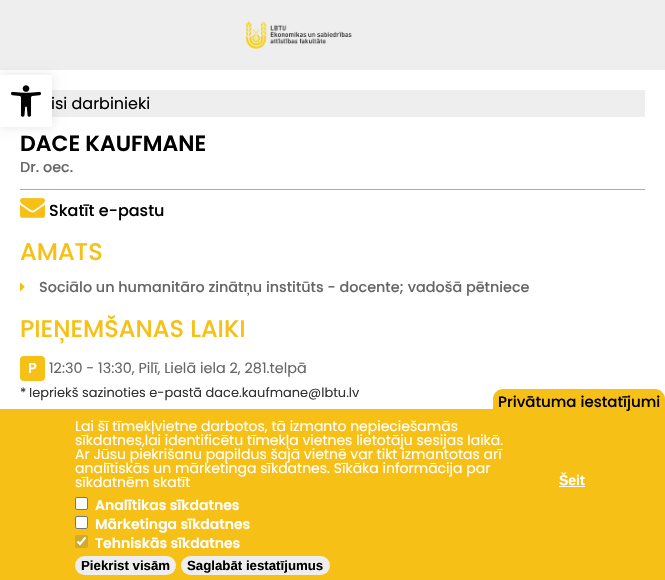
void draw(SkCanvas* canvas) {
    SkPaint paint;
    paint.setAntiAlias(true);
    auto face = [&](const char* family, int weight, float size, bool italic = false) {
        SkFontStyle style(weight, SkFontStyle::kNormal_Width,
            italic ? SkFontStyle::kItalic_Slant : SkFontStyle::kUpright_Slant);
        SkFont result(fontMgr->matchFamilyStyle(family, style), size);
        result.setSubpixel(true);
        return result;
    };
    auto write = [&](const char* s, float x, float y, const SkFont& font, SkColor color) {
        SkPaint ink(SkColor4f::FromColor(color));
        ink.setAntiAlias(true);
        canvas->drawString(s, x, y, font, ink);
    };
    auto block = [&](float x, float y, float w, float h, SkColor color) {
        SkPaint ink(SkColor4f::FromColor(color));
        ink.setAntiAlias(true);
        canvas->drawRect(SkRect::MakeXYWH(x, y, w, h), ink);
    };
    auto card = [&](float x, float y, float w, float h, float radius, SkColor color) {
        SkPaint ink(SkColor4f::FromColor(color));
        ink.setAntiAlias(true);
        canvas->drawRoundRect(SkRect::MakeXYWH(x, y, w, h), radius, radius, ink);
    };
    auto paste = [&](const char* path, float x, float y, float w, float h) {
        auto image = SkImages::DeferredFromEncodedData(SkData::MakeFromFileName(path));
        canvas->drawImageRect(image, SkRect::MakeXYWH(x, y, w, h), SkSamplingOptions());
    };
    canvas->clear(SK_ColorWHITE);
    block(0, 0, 665, 70, SkColorSetRGB(238, 238, 238));
    block(52, 90, 593, 27, SkColorSetRGB(238, 238, 238));
    paint.setColor(SkColorSetARGB(26, 0, 0, 0));
    paint.setMaskFilter(SkMaskFilter::MakeBlur(kNormal_SkBlurStyle, 5));
    canvas->drawRect(SkRect::MakeXYWH(0, 75, 52, 52), paint);
    paint.setMaskFilter(nullptr);
    auto kFont1 = face("Poppins", 400, 16);
    write("isi darbinieki", 51, 109, kFont1, SK_ColorBLACK);
    block(0, 75, 52, 52, SK_ColorWHITE);
    paste("pic1.png", 11, 85, 30, 32);
    paste("pic2.png", 245, 21, 107, 28);
    auto kFont2 = face("Poppins", 600, 22);
    write("DACE KAUFMANE", 20, 151, kFont2, SK_ColorBLACK);
    auto kFont3 = face("Poppins", 500, 14.4f);
    write("Dr. oec.", 20, 172, kFont3, SkColorSetRGB(102, 102, 102));
    block(20, 189, 625, 1, SkColorSetRGB(170, 170, 170));
    paste("pic3.png", 20, 198, 25, 20);
    auto kFont4 = face("Poppins", 500, 16);
    write("Skatīt e-pastu", 49, 216, kFont4, SK_ColorBLACK);
    auto kFont5 = face("Poppins", 500, 24);
    write("AMATS", 20, 260, kFont5, SkColorSetRGB(246, 192, 22));
    paste("pic4.png", 20, 282, 5, 9);
    write("Sociālo un humanitāro zinātņu institūts - docente; vadošā pētniece", 39, 292, kFont3, SkColorSetRGB(102, 102, 102));
    write("PIEŅEMŠANAS LAIKI", 20, 337, kFont5, SkColorSetRGB(246, 192, 22));
    card(20, 356, 25, 25, 4, SkColorSetRGB(246, 192, 22));
    auto kFont6 = face("Poppins", 600, 14.4f);
    write("P", 28, 373, kFont6, SK_ColorWHITE);
    auto kFont7 = face("Poppins", 400, 14.4f);
    write("12:30 - 13:30, Pilī, Lielā iela 2, 281.telpā", 49, 373, kFont7, SkColorSetRGB(102, 102, 102));
    auto kFont8 = face("Poppins", 400, 12.95f);
    write("*", 20, 397, kFont8, SkColorSetRGB(51, 51, 51));
    write("Iepriekš sazinoties e-pastā dace.kaufmane@lbtu.lv", 29, 397, kFont8, SkColorSetRGB(51, 51, 51));
    paint.setColor(SkColorSetRGB(246, 192, 22));
    canvas->drawPath(SkPathBuilder().moveTo(503, 389).lineTo(655, 389).cubicTo(660.5f, 389, 665, 393.5f, 665, 399).lineTo(665, 409).lineTo(493, 409).lineTo(493, 399).cubicTo(493, 393.5f, 497.5f, 389, 503, 389).close().detach(), paint);
    block(0, 409, 665, 171, SkColorSetRGB(246, 192, 22));
    auto kFont9 = face("Poppins", 500, 15);
    write("Privātuma iestatījumi", 498, 407, kFont9, SK_ColorBLACK);
    auto kFont10 = face("Poppins", 400, 14);
    write("Lai šī tīmekļvietne darbotos, tā izmanto nepieciešamās", 75, 431, kFont10, SK_ColorWHITE);
    write("sīkdatnes,lai identificētu tīmekļa vietnes lietotāju sesijas laikā.", 75, 445, kFont10, SK_ColorWHITE);
    write("Ar Jūsu piekrišanu papildus šajā vietnē var tikt izmantotas arī", 75, 459, kFont10, SK_ColorWHITE);
    write("analītiskās un mārketinga sīkdatnes. Sīkāka informācija par", 75, 473, kFont10, SK_ColorWHITE);
    write("sīkdatnēm skatīt", 75, 487, kFont10, SK_ColorWHITE);
    auto kFont11 = face("Liberation Sans", 700, 14);
    write("Šeit", 559, 485, kFont11, SK_ColorWHITE);
    block(559, 486, 26, 1, SK_ColorWHITE);
    paint.setColor(SK_ColorWHITE);
    canvas->drawRoundRect(SkRect::MakeXYWH(75.5f, 497.5f, 12, 12), 1.5f, 1.5f, paint);
    paint.setStyle(SkPaint::kStroke_Style);
    paint.setStrokeWidth(1);
    paint.setColor(SkColorSetRGB(118, 118, 118));
    canvas->drawRoundRect(SkRect::MakeXYWH(75.5f, 497.5f, 12, 12), 1.5f, 1.5f, paint);
    auto kFont12 = face("Poppins", 600, 14);
    write("Analītikas sīkdatnes", 95, 510, kFont12, SK_ColorWHITE);
    paint.setStyle(SkPaint::kFill_Style);
    paint.setColor(SK_ColorWHITE);
    canvas->drawRoundRect(SkRect::MakeXYWH(75.5f, 516.5f, 12, 12), 1.5f, 1.5f, paint);
    paint.setStyle(SkPaint::kStroke_Style);
    paint.setColor(SkColorSetRGB(118, 118, 118));
    canvas->drawRoundRect(SkRect::MakeXYWH(75.5f, 516.5f, 12, 12), 1.5f, 1.5f, paint);
    write("Mārketinga sīkdatnes", 95, 529, kFont12, SK_ColorWHITE);
    card(75, 535, 13, 13, 2, SkColorSetRGB(208, 170, 51));
    paint.setStrokeWidth(2.1f);
    paint.setColor(SK_ColorWHITE);
    canvas->drawPath(SkPathBuilder().moveTo(77.5f, 541.5f).lineTo(80, 544).lineTo(85.5f, 537.5f).detach(), paint);
    write("Tehniskās sīkdatnes", 95, 548, kFont12, SK_ColorWHITE);
    card(181, 556, 149, 19, 9.5f, SkColorSetRGB(238, 238, 238));
    auto kFont13 = face("Liberation Sans", 700, 13.25f);
    write("Saglabāt iestatījumus", 187, 570, kFont13, SK_ColorBLACK);
    card(75, 556, 101, 19, 9.5f, SkColorSetRGB(238, 238, 238));
    write("Piekrist visām", 81, 570, kFont13, SK_ColorBLACK);
}
